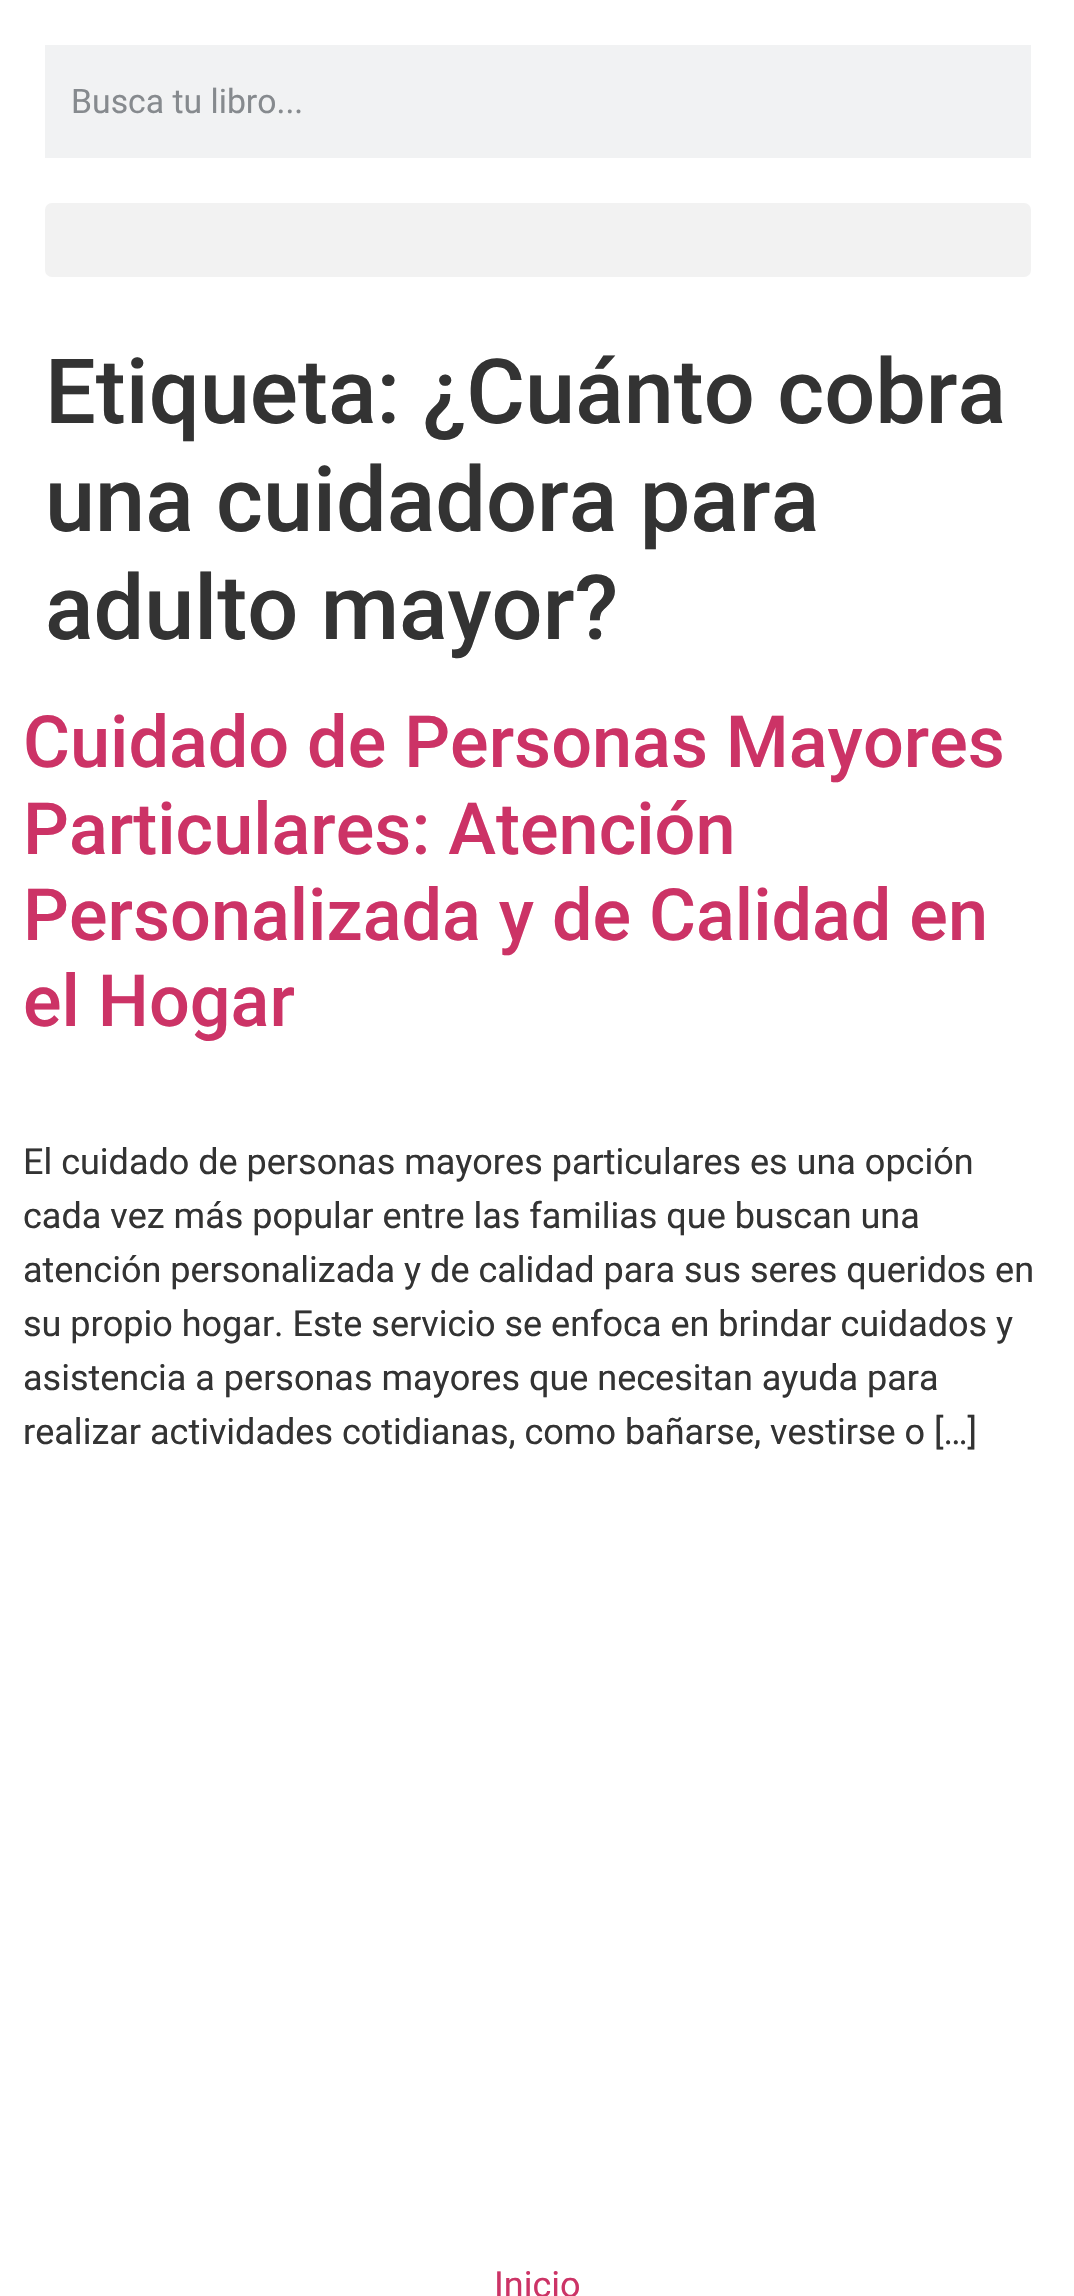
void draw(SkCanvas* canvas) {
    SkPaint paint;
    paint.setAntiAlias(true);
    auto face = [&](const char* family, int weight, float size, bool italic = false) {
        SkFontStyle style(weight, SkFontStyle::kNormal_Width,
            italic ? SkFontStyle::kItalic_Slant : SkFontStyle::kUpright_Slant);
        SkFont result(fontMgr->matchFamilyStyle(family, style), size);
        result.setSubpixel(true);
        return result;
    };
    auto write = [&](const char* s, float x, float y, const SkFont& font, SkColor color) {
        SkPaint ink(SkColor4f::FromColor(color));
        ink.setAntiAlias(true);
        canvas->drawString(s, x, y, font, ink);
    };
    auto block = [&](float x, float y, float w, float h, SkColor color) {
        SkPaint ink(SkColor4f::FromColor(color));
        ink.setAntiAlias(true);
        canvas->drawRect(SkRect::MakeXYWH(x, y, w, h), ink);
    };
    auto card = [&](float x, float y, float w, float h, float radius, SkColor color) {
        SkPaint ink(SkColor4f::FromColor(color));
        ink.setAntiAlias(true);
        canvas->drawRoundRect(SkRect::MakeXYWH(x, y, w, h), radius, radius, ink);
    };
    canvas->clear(SK_ColorWHITE);
    block(45, 45, 986, 113, SkColorSetRGB(241, 242, 243));
    auto kFont1 = face("Roboto", 400, 33.75f);
    write("Busca tu libro...", 71, 113, kFont1, SkColorSetRGB(134, 138, 142));
    card(45, 203, 986, 74, 7, SkColorSetRGB(242, 242, 242));
    auto kFont2 = face("Roboto", 500, 90);
    write("Etiqueta: ¿Cuánto cobra", 45, 423, kFont2, SkColorSetRGB(51, 51, 51));
    write("una cuidadora para", 45, 531, kFont2, SkColorSetRGB(51, 51, 51));
    write("adulto mayor?", 45, 639, kFont2, SkColorSetRGB(51, 51, 51));
    auto kFont3 = face("Roboto", 500, 72);
    write("Cuidado de Personas Mayores", 23, 767, kFont3, SkColorSetRGB(204, 51, 102));
    write("Particulares: Atención", 23, 854, kFont3, SkColorSetRGB(204, 51, 102));
    write("Personalizada y de Calidad en", 23, 940, kFont3, SkColorSetRGB(204, 51, 102));
    write("el Hogar", 23, 1026, kFont3, SkColorSetRGB(204, 51, 102));
    auto kFont4 = face("Roboto", 400, 36);
    write("El cuidado de personas mayores particulares es una opción", 23, 1174, kFont4, SkColorSetRGB(51, 51, 51));
    write("cada vez más popular entre las familias que buscan una", 23, 1228, kFont4, SkColorSetRGB(51, 51, 51));
    write("atención personalizada y de calidad para sus seres queridos en", 23, 1282, kFont4, SkColorSetRGB(51, 51, 51));
    write("su propio hogar. Este servicio se enfoca en brindar cuidados y", 23, 1336, kFont4, SkColorSetRGB(51, 51, 51));
    write("asistencia a personas mayores que necesitan ayuda para", 23, 1390, kFont4, SkColorSetRGB(51, 51, 51));
    write("realizar actividades cotidianas, como bañarse, vestirse o […]", 23, 1444, kFont4, SkColorSetRGB(51, 51, 51));
    write("Inicio", 494, 2297, kFont4, SkColorSetRGB(204, 51, 102));
}
